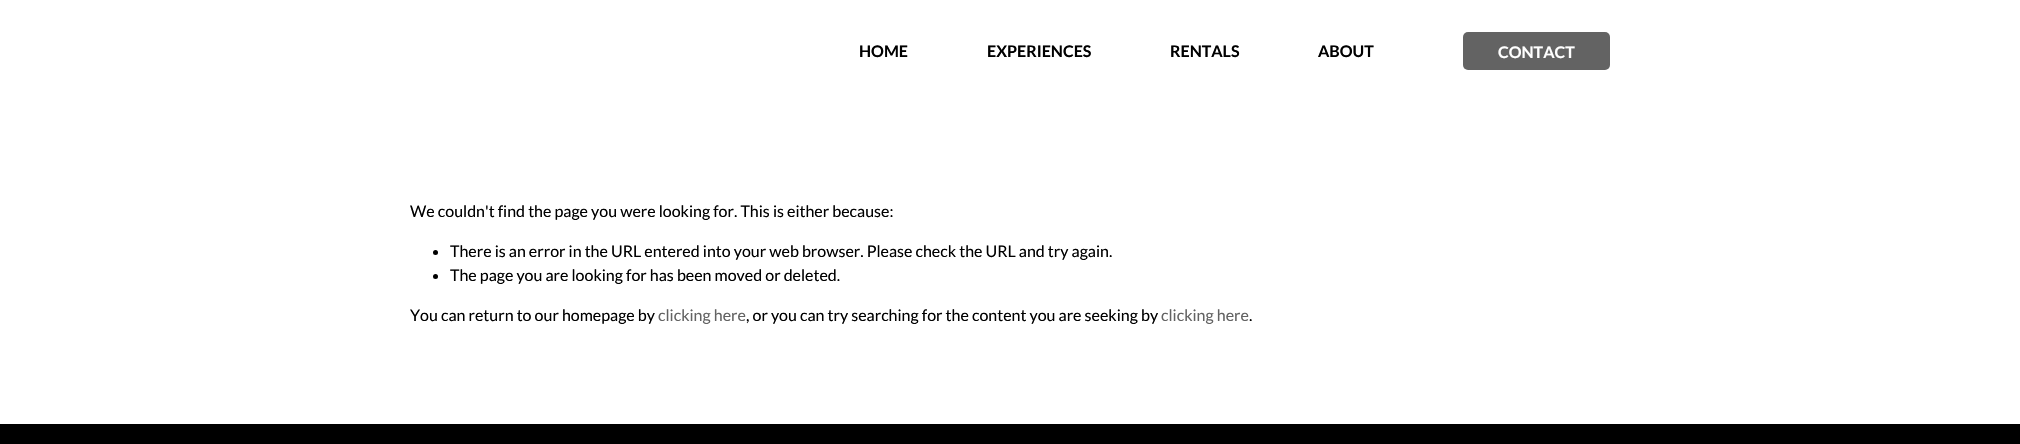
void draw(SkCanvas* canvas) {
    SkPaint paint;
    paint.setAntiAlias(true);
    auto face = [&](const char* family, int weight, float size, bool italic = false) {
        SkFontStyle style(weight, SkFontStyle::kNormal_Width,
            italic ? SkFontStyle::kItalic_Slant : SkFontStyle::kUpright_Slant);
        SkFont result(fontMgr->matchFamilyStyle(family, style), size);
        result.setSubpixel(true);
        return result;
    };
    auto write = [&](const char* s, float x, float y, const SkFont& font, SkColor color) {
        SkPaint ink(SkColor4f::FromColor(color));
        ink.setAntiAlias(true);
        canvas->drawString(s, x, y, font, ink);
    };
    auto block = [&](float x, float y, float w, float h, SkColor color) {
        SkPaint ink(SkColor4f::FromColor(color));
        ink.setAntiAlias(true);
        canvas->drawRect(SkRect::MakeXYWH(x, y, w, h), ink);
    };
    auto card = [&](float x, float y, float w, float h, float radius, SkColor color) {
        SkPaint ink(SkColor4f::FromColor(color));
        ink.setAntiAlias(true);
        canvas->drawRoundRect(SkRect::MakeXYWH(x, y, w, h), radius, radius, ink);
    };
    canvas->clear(SK_ColorWHITE);
    auto kFont1 = face("Lato", 700, 16);
    write("HOME", 859, 57, kFont1, SK_ColorBLACK);
    write("EXPERIENCES", 987, 57, kFont1, SK_ColorBLACK);
    write("RENTALS", 1170, 57, kFont1, SK_ColorBLACK);
    write("ABOUT", 1318, 57, kFont1, SK_ColorBLACK);
    card(1463, 32, 147, 38, 5, SkColorSetRGB(99, 99, 99));
    write("CONTACT", 1498, 58, kFont1, SK_ColorWHITE);
    auto kFont2 = face("Lato", 400, 16);
    write("We couldn't find the page you were looking for. This is either because:", 410, 217, kFont2, SK_ColorBLACK);
    paint.setColor(SK_ColorBLACK);
    canvas->drawCircle(435.5f, 252.5f, 2.5f, paint);
    write("There is an error in the URL entered into your web browser. Please check the URL and try again.", 450, 257, kFont2, SK_ColorBLACK);
    canvas->drawCircle(435.5f, 276.5f, 2.5f, paint);
    write("The page you are looking for has been moved or deleted.", 450, 281, kFont2, SK_ColorBLACK);
    write("You can return to our homepage by", 410, 321, kFont2, SK_ColorBLACK);
    write("clicking here", 658, 321, kFont2, SkColorSetRGB(99, 99, 99));
    write(", or you can try searching for the content you are seeking by", 746, 321, kFont2, SK_ColorBLACK);
    write("clicking here", 1161, 321, kFont2, SkColorSetRGB(99, 99, 99));
    write(".", 1249, 321, kFont2, SK_ColorBLACK);
    block(0, 424, 2020, 20, SK_ColorBLACK);
}
